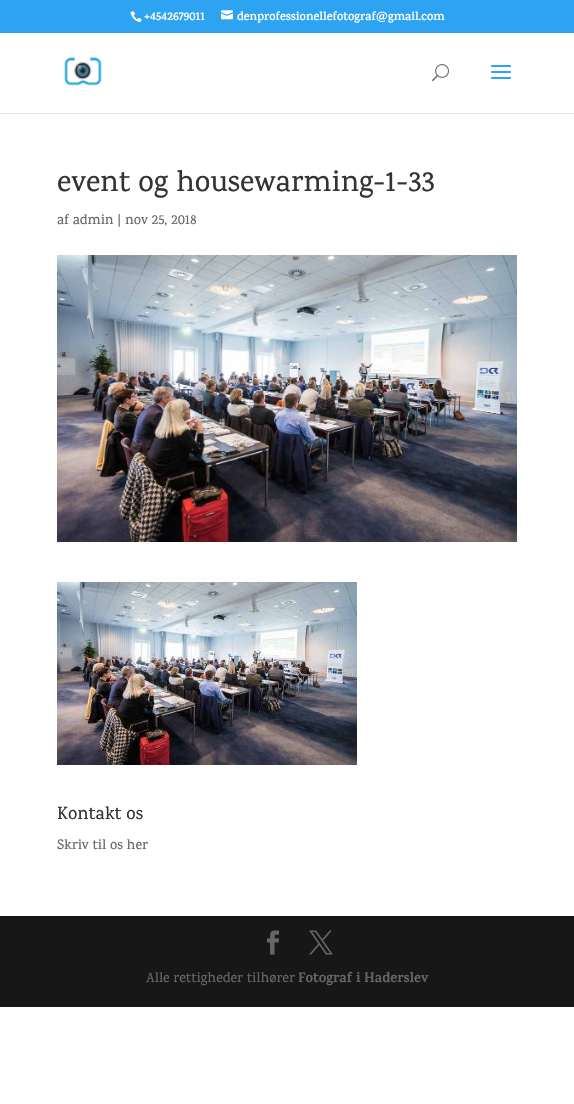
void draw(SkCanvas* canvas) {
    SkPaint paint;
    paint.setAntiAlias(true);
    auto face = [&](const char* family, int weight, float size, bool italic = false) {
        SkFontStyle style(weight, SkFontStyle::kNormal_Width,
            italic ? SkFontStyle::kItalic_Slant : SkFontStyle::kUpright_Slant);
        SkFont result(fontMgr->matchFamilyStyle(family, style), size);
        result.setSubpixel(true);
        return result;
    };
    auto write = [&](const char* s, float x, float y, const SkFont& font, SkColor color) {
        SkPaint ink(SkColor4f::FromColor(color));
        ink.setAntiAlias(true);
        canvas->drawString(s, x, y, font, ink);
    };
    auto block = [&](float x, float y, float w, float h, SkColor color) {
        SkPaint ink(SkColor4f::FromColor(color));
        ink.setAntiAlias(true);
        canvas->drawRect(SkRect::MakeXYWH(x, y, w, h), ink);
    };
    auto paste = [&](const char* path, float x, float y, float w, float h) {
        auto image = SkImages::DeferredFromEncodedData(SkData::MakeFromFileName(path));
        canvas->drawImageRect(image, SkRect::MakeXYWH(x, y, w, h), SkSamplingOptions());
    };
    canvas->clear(SK_ColorWHITE);
    block(0, 0, 574, 33, SkColorSetRGB(46, 163, 242));
    paste("pic1.png", 130, 11, 12, 12);
    auto kFont1 = face("Karma", 600, 12);
    write("+4542679011", 144, 20, kFont1, SK_ColorWHITE);
    paste("pic2.png", 221, 10, 12, 10);
    write("denprofessionellefotograf@gmail.com", 237, 20, kFont1, SK_ColorWHITE);
    block(0, 113, 574, 1, SkColorSetRGB(230, 230, 230));
    paste("pic3.png", 64, 57, 38, 29);
    paste("pic4.png", 432, 64, 17, 18);
    paste("pic5.png", 491, 65, 20, 14);
    auto kFont2 = face("Karma", 500, 30);
    write("event og housewarming-1-33", 57, 191, kFont2, SkColorSetRGB(51, 51, 51));
    auto kFont3 = face("Karma", 500, 14);
    write("af admin | nov 25, 2018", 57, 224, kFont3, SkColorSetRGB(102, 102, 102));
    paste("pic6.png", 57, 255, 460, 287);
    paste("pic7.png", 57, 582, 300, 183);
    auto kFont4 = face("Karma", 500, 18);
    write("Kontakt os", 57, 819, kFont4, SkColorSetRGB(51, 51, 51));
    write("Skriv til os her", 57, 849, kFont3, SkColorSetRGB(102, 102, 102));
    block(0, 916, 574, 91, SkColorSetRGB(23, 23, 23));
    paste("pic8.png", 267, 930, 12, 25);
    paste("pic9.png", 309, 930, 24, 25);
    write("Alle rettigheder tilhører", 146, 982, kFont3, SkColorSetRGB(102, 102, 102));
    auto kFont5 = face("Karma", 700, 14);
    write("Fotograf i Haderslev", 298, 982, kFont5, SkColorSetRGB(102, 102, 102));
}
